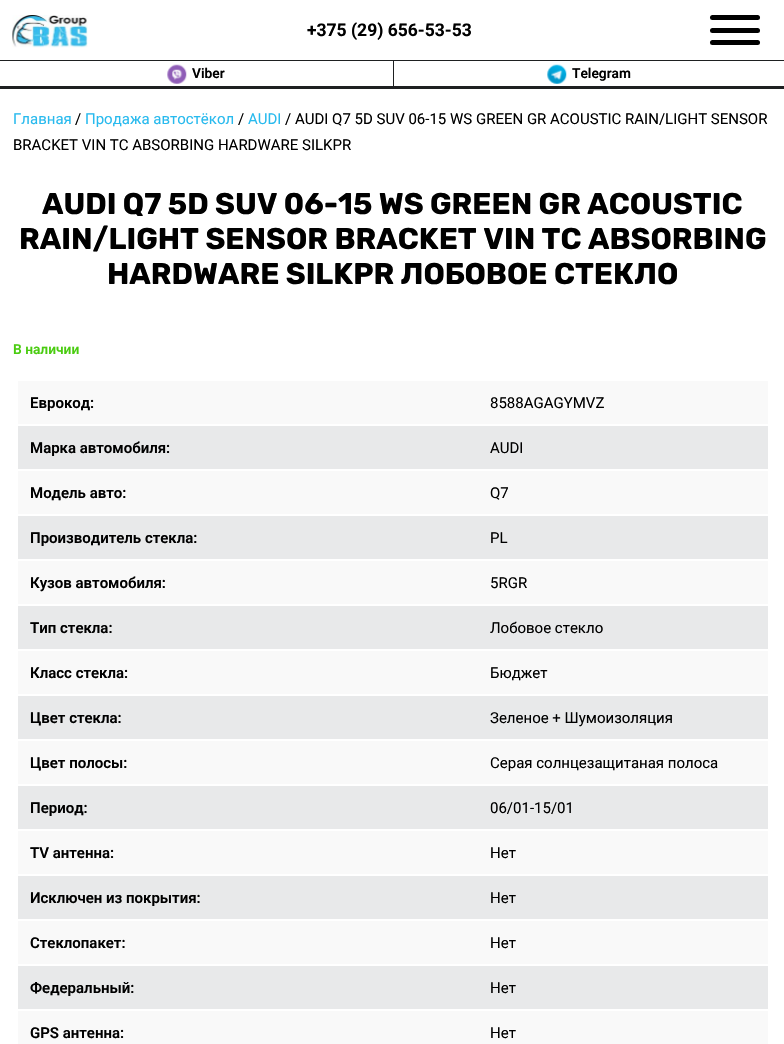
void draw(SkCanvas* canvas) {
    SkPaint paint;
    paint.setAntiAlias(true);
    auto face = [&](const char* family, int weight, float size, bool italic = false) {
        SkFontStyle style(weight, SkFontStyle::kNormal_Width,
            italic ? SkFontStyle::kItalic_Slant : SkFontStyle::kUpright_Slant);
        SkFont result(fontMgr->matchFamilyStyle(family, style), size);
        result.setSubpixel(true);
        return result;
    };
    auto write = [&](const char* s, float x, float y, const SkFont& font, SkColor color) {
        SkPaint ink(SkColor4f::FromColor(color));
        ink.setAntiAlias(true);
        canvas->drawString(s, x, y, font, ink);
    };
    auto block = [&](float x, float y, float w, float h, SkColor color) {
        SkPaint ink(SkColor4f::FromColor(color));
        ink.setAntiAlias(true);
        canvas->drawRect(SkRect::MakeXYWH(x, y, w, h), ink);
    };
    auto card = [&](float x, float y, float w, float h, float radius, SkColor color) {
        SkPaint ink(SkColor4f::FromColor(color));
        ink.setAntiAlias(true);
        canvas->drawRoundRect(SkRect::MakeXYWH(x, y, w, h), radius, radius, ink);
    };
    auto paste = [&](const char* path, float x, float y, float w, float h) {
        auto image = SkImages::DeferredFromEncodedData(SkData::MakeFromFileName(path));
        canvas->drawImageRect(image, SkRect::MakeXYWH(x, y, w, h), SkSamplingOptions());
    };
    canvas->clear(SK_ColorWHITE);
    block(0, 86, 784, 3, SkColorSetRGB(30, 32, 33));
    paste("pic1.png", 12, 15, 76, 33);
    auto kFont1 = face("Roboto", 700, 17.5f);
    write("+375 (29) 656-53-53", 307, 36, kFont1, SK_ColorBLACK);
    card(710, 40, 50, 5, 2.5f, SK_ColorBLACK);
    card(710, 15, 50, 5, 2.5f, SK_ColorBLACK);
    card(710, 28, 50, 5, 2.5f, SK_ColorBLACK);
    block(0, 60, 784, 1, SkColorSetRGB(30, 32, 33));
    block(393, 61, 1, 25, SkColorSetRGB(30, 32, 33));
    paste("pic2.png", 167, 64, 20, 20);
    auto kFont2 = face("Roboto", 600, 13.75f);
    write("Viber", 192, 78, kFont2, SK_ColorBLACK);
    paste("pic3.png", 547, 64, 20, 20);
    write("Telegram", 572, 78, kFont2, SK_ColorBLACK);
    auto kFont3 = face("Roboto", 400, 15);
    write("Главная", 13, 124, kFont3, SkColorSetRGB(40, 186, 238));
    write("/", 75, 124, kFont3, SK_ColorBLACK);
    write("Продажа автостёкол", 85, 124, kFont3, SkColorSetRGB(40, 186, 238));
    write("/", 238, 124, kFont3, SK_ColorBLACK);
    write("AUDI", 248, 124, kFont3, SkColorSetRGB(40, 186, 238));
    write("/ AUDI Q7 5D SUV 06-15 WS GREEN GR ACOUSTIC RAIN/LIGHT SENSOR", 285, 124, kFont3, SK_ColorBLACK);
    write("BRACKET VIN TC ABSORBING HARDWARE SILKPR", 13, 150, kFont3, SK_ColorBLACK);
    auto kFont4 = face("Rubik", 700, 30);
    write("AUDI Q7 5D SUV 06-15 WS GREEN GR ACOUSTIC", 42, 214, kFont4, SK_ColorBLACK);
    write("RAIN/LIGHT SENSOR BRACKET VIN TC ABSORBING", 19, 249, kFont4, SK_ColorBLACK);
    write("HARDWARE SILKPR ЛОБОВОЕ СТЕКЛО", 107, 284, kFont4, SK_ColorBLACK);
    write("В наличии", 13, 354, kFont2, SkColorSetRGB(74, 204, 16));
    block(18, 381, 750, 43, SkColorSetRGB(249, 249, 249));
    auto kFont5 = face("Roboto", 600, 15);
    write("Еврокод:", 30, 408, kFont5, SK_ColorBLACK);
    write("8588AGAGYMVZ", 490, 408, kFont3, SK_ColorBLACK);
    block(18, 426, 750, 43, SkColorSetRGB(232, 233, 234));
    write("Марка автомобиля:", 30, 453, kFont5, SK_ColorBLACK);
    write("AUDI", 490, 453, kFont3, SK_ColorBLACK);
    block(18, 471, 750, 43, SkColorSetRGB(249, 249, 249));
    write("Модель авто:", 30, 498, kFont5, SK_ColorBLACK);
    write("Q7", 490, 498, kFont3, SK_ColorBLACK);
    block(18, 516, 750, 43, SkColorSetRGB(232, 233, 234));
    write("Производитель стекла:", 30, 543, kFont5, SK_ColorBLACK);
    write("PL", 490, 543, kFont3, SK_ColorBLACK);
    block(18, 561, 750, 43, SkColorSetRGB(249, 249, 249));
    write("Кузов автомобиля:", 30, 588, kFont5, SK_ColorBLACK);
    write("5RGR", 490, 588, kFont3, SK_ColorBLACK);
    block(18, 606, 750, 43, SkColorSetRGB(232, 233, 234));
    write("Тип стекла:", 30, 633, kFont5, SK_ColorBLACK);
    write("Лобовое стекло", 490, 633, kFont3, SK_ColorBLACK);
    block(18, 651, 750, 43, SkColorSetRGB(249, 249, 249));
    write("Класс стекла:", 30, 678, kFont5, SK_ColorBLACK);
    write("Бюджет", 490, 678, kFont3, SK_ColorBLACK);
    block(18, 696, 750, 43, SkColorSetRGB(232, 233, 234));
    write("Цвет стекла:", 30, 723, kFont5, SK_ColorBLACK);
    write("Зеленое + Шумоизоляция", 490, 723, kFont3, SK_ColorBLACK);
    block(18, 741, 750, 43, SkColorSetRGB(249, 249, 249));
    write("Цвет полосы:", 30, 768, kFont5, SK_ColorBLACK);
    write("Серая солнцезащитаная полоса", 490, 768, kFont3, SK_ColorBLACK);
    block(18, 786, 750, 43, SkColorSetRGB(232, 233, 234));
    write("Период:", 30, 813, kFont5, SK_ColorBLACK);
    write("06/01-15/01", 490, 813, kFont3, SK_ColorBLACK);
    block(18, 831, 750, 43, SkColorSetRGB(249, 249, 249));
    write("TV антенна:", 30, 858, kFont5, SK_ColorBLACK);
    write("Нет", 490, 858, kFont3, SK_ColorBLACK);
    block(18, 876, 750, 43, SkColorSetRGB(232, 233, 234));
    write("Исключен из покрытия:", 30, 903, kFont5, SK_ColorBLACK);
    write("Нет", 490, 903, kFont3, SK_ColorBLACK);
    block(18, 921, 750, 43, SkColorSetRGB(249, 249, 249));
    write("Стеклопакет:", 30, 948, kFont5, SK_ColorBLACK);
    write("Нет", 490, 948, kFont3, SK_ColorBLACK);
    block(18, 966, 750, 43, SkColorSetRGB(232, 233, 234));
    write("Федеральный:", 30, 993, kFont5, SK_ColorBLACK);
    write("Нет", 490, 993, kFont3, SK_ColorBLACK);
    block(18, 1011, 750, 33, SkColorSetRGB(249, 249, 249));
    write("GPS антенна:", 30, 1038, kFont5, SK_ColorBLACK);
    write("Нет", 490, 1038, kFont3, SK_ColorBLACK);
}
